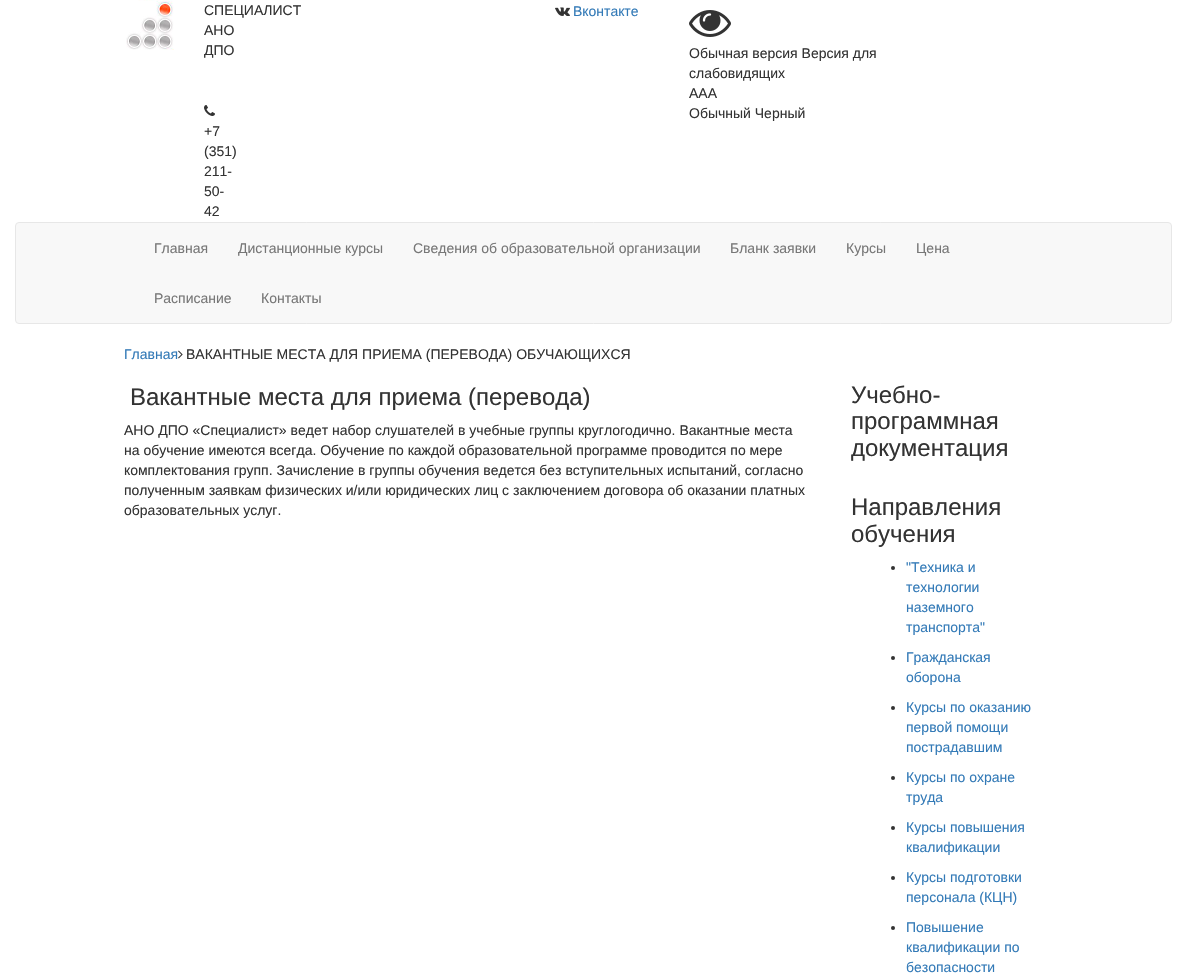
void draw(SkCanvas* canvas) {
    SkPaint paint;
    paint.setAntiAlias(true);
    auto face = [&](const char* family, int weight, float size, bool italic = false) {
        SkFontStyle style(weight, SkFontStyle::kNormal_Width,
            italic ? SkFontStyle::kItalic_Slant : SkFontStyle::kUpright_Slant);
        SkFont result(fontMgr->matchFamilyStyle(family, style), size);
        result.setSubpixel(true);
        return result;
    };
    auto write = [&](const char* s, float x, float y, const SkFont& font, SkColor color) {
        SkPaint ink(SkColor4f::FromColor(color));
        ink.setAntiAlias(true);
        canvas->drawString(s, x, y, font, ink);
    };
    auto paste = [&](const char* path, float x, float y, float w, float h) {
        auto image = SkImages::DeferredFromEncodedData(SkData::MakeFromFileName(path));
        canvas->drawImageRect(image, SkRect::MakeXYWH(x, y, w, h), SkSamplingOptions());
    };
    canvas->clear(SK_ColorWHITE);
    paste("pic1.png", 126, 0, 48, 50);
    auto kFont1 = face("Liberation Sans", 400, 14);
    write("СПЕЦИАЛИСТ", 204, 15, kFont1, SkColorSetRGB(51, 51, 51));
    write("АНО", 204, 35, kFont1, SkColorSetRGB(51, 51, 51));
    write("ДПО", 204, 55, kFont1, SkColorSetRGB(51, 51, 51));
    paste("pic2.png", 204, 105, 11, 11);
    write("+7", 204, 136, kFont1, SkColorSetRGB(51, 51, 51));
    write("(351)", 204, 156, kFont1, SkColorSetRGB(51, 51, 51));
    write("211-", 204, 176, kFont1, SkColorSetRGB(51, 51, 51));
    write("50-", 204, 196, kFont1, SkColorSetRGB(51, 51, 51));
    write("42", 204, 216, kFont1, SkColorSetRGB(51, 51, 51));
    paste("pic3.png", 555, 7, 15, 9);
    write("Вконтакте", 573, 16, kFont1, SkColorSetRGB(51, 122, 183));
    paste("pic4.png", 689, 10, 42, 27);
    write("Обычная версия Версия для", 689, 58, kFont1, SkColorSetRGB(51, 51, 51));
    write("слабовидящих", 689, 78, kFont1, SkColorSetRGB(51, 51, 51));
    write("AAA", 689, 98, kFont1, SkColorSetRGB(51, 51, 51));
    write("Обычный Черный", 689, 118, kFont1, SkColorSetRGB(51, 51, 51));
    paint.setColor(SkColorSetRGB(248, 248, 248));
    canvas->drawRoundRect(SkRect::MakeXYWH(15.5f, 222.5f, 1156, 101), 3.5f, 3.5f, paint);
    paint.setStyle(SkPaint::kStroke_Style);
    paint.setStrokeWidth(1);
    paint.setColor(SkColorSetRGB(231, 231, 231));
    canvas->drawRoundRect(SkRect::MakeXYWH(15.5f, 222.5f, 1156, 101), 3.5f, 3.5f, paint);
    write("Главная", 154, 253, kFont1, SkColorSetRGB(119, 119, 119));
    write("Дистанционные курсы", 238, 253, kFont1, SkColorSetRGB(119, 119, 119));
    write("Сведения об образовательной организации", 413, 253, kFont1, SkColorSetRGB(119, 119, 119));
    write("Бланк заявки", 730, 253, kFont1, SkColorSetRGB(119, 119, 119));
    write("Курсы", 846, 253, kFont1, SkColorSetRGB(119, 119, 119));
    write("Цена", 916, 253, kFont1, SkColorSetRGB(119, 119, 119));
    write("Расписание", 154, 303, kFont1, SkColorSetRGB(119, 119, 119));
    write("Контакты", 261, 303, kFont1, SkColorSetRGB(119, 119, 119));
    write("Главная", 124, 359, kFont1, SkColorSetRGB(51, 122, 183));
    paste("pic5.png", 178, 350, 5, 9);
    write("ВАКАНТНЫЕ МЕСТА ДЛЯ ПРИЕМА (ПЕРЕВОДА) ОБУЧАЮЩИХСЯ", 186, 359, kFont1, SkColorSetRGB(51, 51, 51));
    auto kFont2 = face("Liberation Sans", 400, 24);
    write("Вакантные места для приема (перевода)", 130, 405, kFont2, SkColorSetRGB(51, 51, 51));
    write("АНО ДПО «Специалист» ведет набор слушателей в учебные группы круглогодично. Вакантные места", 124, 435, kFont1, SkColorSetRGB(51, 51, 51));
    write("на обучение имеются всегда. Обучение по каждой образовательной программе проводится по мере", 124, 455, kFont1, SkColorSetRGB(51, 51, 51));
    write("комплектования групп. Зачисление в группы обучения ведется без вступительных испытаний, согласно", 124, 475, kFont1, SkColorSetRGB(51, 51, 51));
    write("полученным заявкам физических и/или юридических лиц с заключением договора об оказании платных", 124, 495, kFont1, SkColorSetRGB(51, 51, 51));
    write("образовательных услуг.", 124, 515, kFont1, SkColorSetRGB(51, 51, 51));
    write("Учебно-", 851, 403, kFont2, SkColorSetRGB(51, 51, 51));
    write("программная", 851, 429, kFont2, SkColorSetRGB(51, 51, 51));
    write("документация", 851, 456, kFont2, SkColorSetRGB(51, 51, 51));
    write("Направления", 851, 515, kFont2, SkColorSetRGB(51, 51, 51));
    write("обучения", 851, 542, kFont2, SkColorSetRGB(51, 51, 51));
    paint.setStyle(SkPaint::kFill_Style);
    paint.setColor(SkColorSetRGB(51, 51, 51));
    canvas->drawCircle(893, 568, 2, paint);
    write("\"Техника и", 906, 572, kFont1, SkColorSetRGB(51, 122, 183));
    write("технологии", 906, 592, kFont1, SkColorSetRGB(51, 122, 183));
    write("наземного", 906, 612, kFont1, SkColorSetRGB(51, 122, 183));
    write("транспорта\"", 906, 632, kFont1, SkColorSetRGB(51, 122, 183));
    canvas->drawCircle(893, 658, 2, paint);
    write("Гражданская", 906, 662, kFont1, SkColorSetRGB(51, 122, 183));
    write("оборона", 906, 682, kFont1, SkColorSetRGB(51, 122, 183));
    canvas->drawCircle(893, 708, 2, paint);
    write("Курсы по оказанию", 906, 712, kFont1, SkColorSetRGB(51, 122, 183));
    write("первой помощи", 906, 732, kFont1, SkColorSetRGB(51, 122, 183));
    write("пострадавшим", 906, 752, kFont1, SkColorSetRGB(51, 122, 183));
    canvas->drawCircle(893, 778, 2, paint);
    write("Курсы по охране", 906, 782, kFont1, SkColorSetRGB(51, 122, 183));
    write("труда", 906, 802, kFont1, SkColorSetRGB(51, 122, 183));
    canvas->drawCircle(893, 828, 2, paint);
    write("Курсы повышения", 906, 832, kFont1, SkColorSetRGB(51, 122, 183));
    write("квалификации", 906, 852, kFont1, SkColorSetRGB(51, 122, 183));
    canvas->drawCircle(893, 878, 2, paint);
    write("Курсы подготовки", 906, 882, kFont1, SkColorSetRGB(51, 122, 183));
    write("персонала (КЦН)", 906, 902, kFont1, SkColorSetRGB(51, 122, 183));
    canvas->drawCircle(893, 928, 2, paint);
    write("Повышение", 906, 932, kFont1, SkColorSetRGB(51, 122, 183));
    write("квалификации по", 906, 952, kFont1, SkColorSetRGB(51, 122, 183));
    write("безопасности", 906, 972, kFont1, SkColorSetRGB(51, 122, 183));
}
